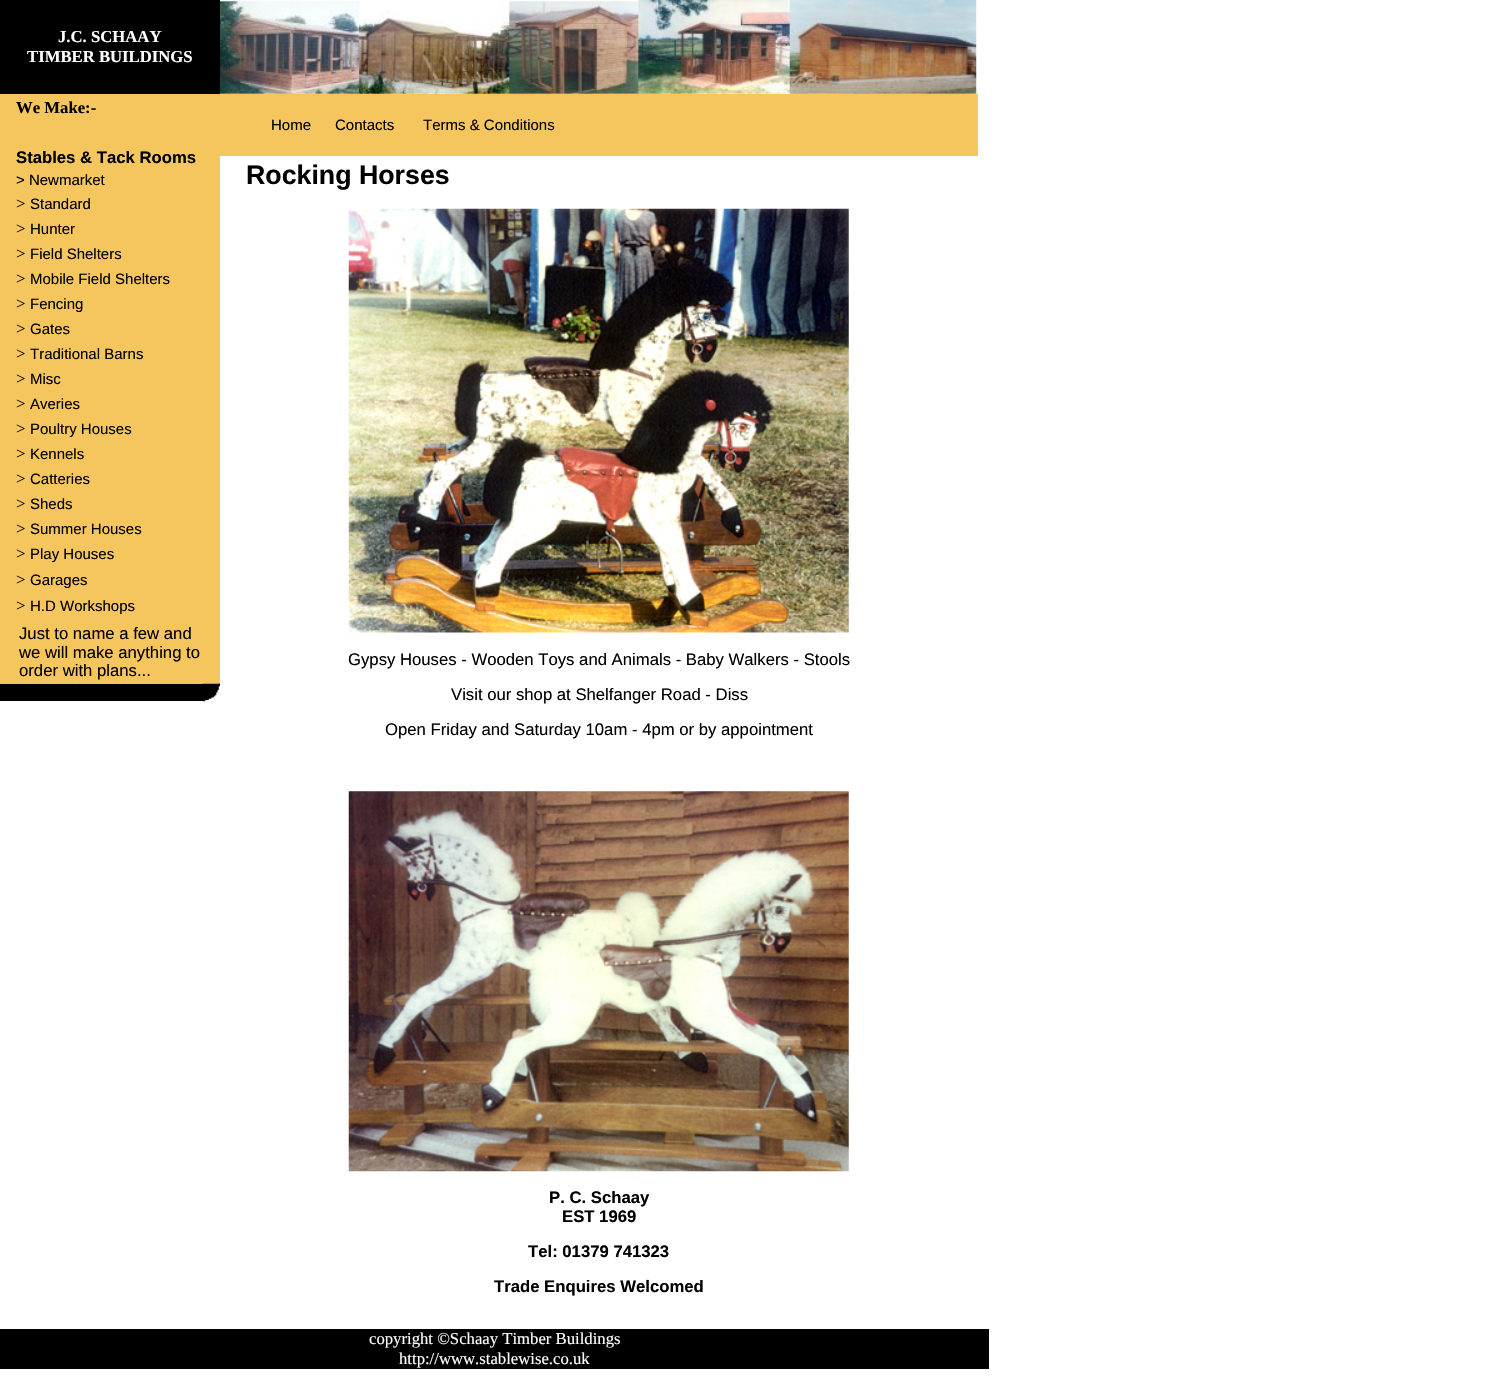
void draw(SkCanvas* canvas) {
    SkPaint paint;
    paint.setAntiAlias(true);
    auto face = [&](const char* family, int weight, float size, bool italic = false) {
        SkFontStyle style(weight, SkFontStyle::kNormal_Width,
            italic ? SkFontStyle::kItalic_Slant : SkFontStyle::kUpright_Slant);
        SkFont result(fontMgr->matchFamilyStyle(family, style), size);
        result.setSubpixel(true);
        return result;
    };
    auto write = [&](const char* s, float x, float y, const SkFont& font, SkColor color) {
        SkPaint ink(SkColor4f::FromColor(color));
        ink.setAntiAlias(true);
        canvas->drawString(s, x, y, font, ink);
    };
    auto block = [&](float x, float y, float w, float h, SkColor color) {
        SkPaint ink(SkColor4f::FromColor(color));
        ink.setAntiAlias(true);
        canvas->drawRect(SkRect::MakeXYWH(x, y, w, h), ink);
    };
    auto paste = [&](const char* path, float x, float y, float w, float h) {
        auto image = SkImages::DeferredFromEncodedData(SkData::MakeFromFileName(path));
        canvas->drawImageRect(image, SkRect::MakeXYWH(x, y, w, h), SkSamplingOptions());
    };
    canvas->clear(SK_ColorWHITE);
    block(0, 0, 220, 94, SK_ColorBLACK);
    auto kFont1 = face("Liberation Serif", 700, 16.7f);
    write("J.C. SCHAAY", 58, 42, kFont1, SK_ColorWHITE);
    write("TIMBER BUILDINGS", 27, 62, kFont1, SK_ColorWHITE);
    paste("pic1.png", 220, 0, 757, 94);
    block(0, 94, 220, 590, SkColorSetRGB(246, 198, 94));
    write("We Make:-", 16, 113, kFont1, SK_ColorBLACK);
    auto kFont2 = face("Liberation Sans", 700, 16.7f);
    write("Stables & Tack Rooms", 16, 163, kFont2, SK_ColorBLACK);
    auto kFont3 = face("Liberation Sans", 400, 15);
    write("> Newmarket", 16, 185, kFont3, SK_ColorBLACK);
    auto kFont4 = face("Liberation Serif", 400, 16.7f);
    write(">", 16, 209, kFont4, SK_ColorBLACK);
    write("Standard", 30, 209, kFont3, SK_ColorBLACK);
    write(">", 16, 234, kFont4, SK_ColorBLACK);
    write("Hunter", 30, 234, kFont3, SK_ColorBLACK);
    write(">", 16, 259, kFont4, SK_ColorBLACK);
    write("Field Shelters", 30, 259, kFont3, SK_ColorBLACK);
    write(">", 16, 284, kFont4, SK_ColorBLACK);
    write("Mobile Field Shelters", 30, 284, kFont3, SK_ColorBLACK);
    write(">", 16, 309, kFont4, SK_ColorBLACK);
    write("Fencing", 30, 309, kFont3, SK_ColorBLACK);
    write(">", 16, 334, kFont4, SK_ColorBLACK);
    write("Gates", 30, 334, kFont3, SK_ColorBLACK);
    write(">", 16, 359, kFont4, SK_ColorBLACK);
    write("Traditional Barns", 30, 359, kFont3, SK_ColorBLACK);
    write(">", 16, 384, kFont4, SK_ColorBLACK);
    write("Misc", 30, 384, kFont3, SK_ColorBLACK);
    write(">", 16, 409, kFont4, SK_ColorBLACK);
    write("Averies", 30, 409, kFont3, SK_ColorBLACK);
    write(">", 16, 434, kFont4, SK_ColorBLACK);
    write("Poultry Houses", 30, 434, kFont3, SK_ColorBLACK);
    write(">", 16, 459, kFont4, SK_ColorBLACK);
    write("Kennels", 30, 459, kFont3, SK_ColorBLACK);
    write(">", 16, 484, kFont4, SK_ColorBLACK);
    write("Catteries", 30, 484, kFont3, SK_ColorBLACK);
    write(">", 16, 509, kFont4, SK_ColorBLACK);
    write("Sheds", 30, 509, kFont3, SK_ColorBLACK);
    write(">", 16, 534, kFont4, SK_ColorBLACK);
    write("Summer Houses", 30, 534, kFont3, SK_ColorBLACK);
    write(">", 16, 559, kFont4, SK_ColorBLACK);
    write("Play Houses", 30, 559, kFont3, SK_ColorBLACK);
    write(">", 16, 585, kFont4, SK_ColorBLACK);
    write("Garages", 30, 585, kFont3, SK_ColorBLACK);
    write(">", 16, 611, kFont4, SK_ColorBLACK);
    write("H.D Workshops", 30, 611, kFont3, SK_ColorBLACK);
    auto kFont5 = face("Liberation Sans", 400, 16.7f);
    write("Just to name a few and", 19, 639, kFont5, SK_ColorBLACK);
    write("we will make anything to", 19, 658, kFont5, SK_ColorBLACK);
    write("order with plans...", 19, 676, kFont5, SK_ColorBLACK);
    block(0, 684, 203, 17, SK_ColorBLACK);
    paste("pic2.png", 202, 683, 18, 19);
    block(220, 94, 758, 62, SkColorSetRGB(246, 198, 94));
    write("Home", 271, 130, kFont3, SK_ColorBLACK);
    write("Contacts", 335, 130, kFont3, SK_ColorBLACK);
    write("Terms & Conditions", 423, 130, kFont3, SK_ColorBLACK);
    auto kFont6 = face("Liberation Sans", 700, 26.75f);
    write("Rocking Horses", 246, 184, kFont6, SK_ColorBLACK);
    paste("pic3.png", 348, 208, 501, 425);
    write("Gypsy Houses - Wooden Toys and Animals - Baby Walkers - Stools", 348, 665, kFont5, SK_ColorBLACK);
    write("Visit our shop at Shelfanger Road - Diss", 451, 700, kFont5, SK_ColorBLACK);
    write("Open Friday and Saturday 10am - 4pm or by appointment", 385, 735, kFont5, SK_ColorBLACK);
    paste("pic4.png", 348, 791, 501, 381);
    write("P. C. Schaay", 549, 1203, kFont2, SK_ColorBLACK);
    write("EST 1969", 562, 1222, kFont2, SK_ColorBLACK);
    write("Tel: 01379 741323", 528, 1257, kFont2, SK_ColorBLACK);
    write("Trade Enquires Welcomed", 494, 1292, kFont2, SK_ColorBLACK);
    block(0, 1329, 989, 40, SK_ColorBLACK);
    write("copyright ©Schaay Timber Buildings", 369, 1344, kFont4, SK_ColorWHITE);
    write("http://www.stablewise.co.uk", 399, 1364, kFont4, SK_ColorWHITE);
}
